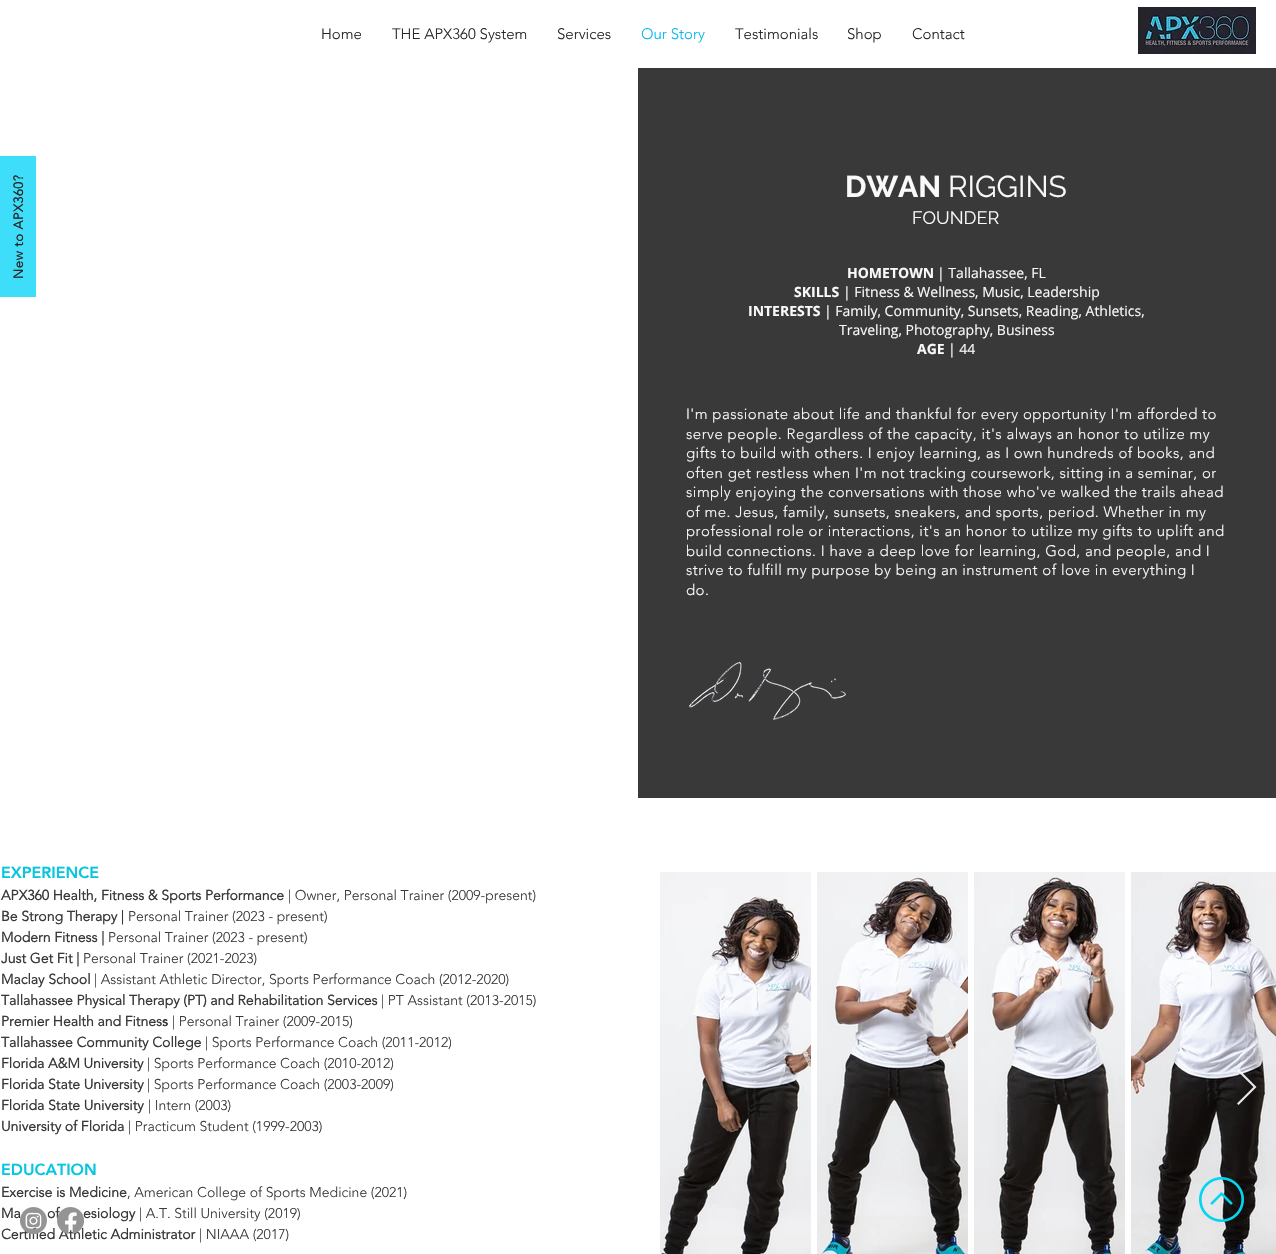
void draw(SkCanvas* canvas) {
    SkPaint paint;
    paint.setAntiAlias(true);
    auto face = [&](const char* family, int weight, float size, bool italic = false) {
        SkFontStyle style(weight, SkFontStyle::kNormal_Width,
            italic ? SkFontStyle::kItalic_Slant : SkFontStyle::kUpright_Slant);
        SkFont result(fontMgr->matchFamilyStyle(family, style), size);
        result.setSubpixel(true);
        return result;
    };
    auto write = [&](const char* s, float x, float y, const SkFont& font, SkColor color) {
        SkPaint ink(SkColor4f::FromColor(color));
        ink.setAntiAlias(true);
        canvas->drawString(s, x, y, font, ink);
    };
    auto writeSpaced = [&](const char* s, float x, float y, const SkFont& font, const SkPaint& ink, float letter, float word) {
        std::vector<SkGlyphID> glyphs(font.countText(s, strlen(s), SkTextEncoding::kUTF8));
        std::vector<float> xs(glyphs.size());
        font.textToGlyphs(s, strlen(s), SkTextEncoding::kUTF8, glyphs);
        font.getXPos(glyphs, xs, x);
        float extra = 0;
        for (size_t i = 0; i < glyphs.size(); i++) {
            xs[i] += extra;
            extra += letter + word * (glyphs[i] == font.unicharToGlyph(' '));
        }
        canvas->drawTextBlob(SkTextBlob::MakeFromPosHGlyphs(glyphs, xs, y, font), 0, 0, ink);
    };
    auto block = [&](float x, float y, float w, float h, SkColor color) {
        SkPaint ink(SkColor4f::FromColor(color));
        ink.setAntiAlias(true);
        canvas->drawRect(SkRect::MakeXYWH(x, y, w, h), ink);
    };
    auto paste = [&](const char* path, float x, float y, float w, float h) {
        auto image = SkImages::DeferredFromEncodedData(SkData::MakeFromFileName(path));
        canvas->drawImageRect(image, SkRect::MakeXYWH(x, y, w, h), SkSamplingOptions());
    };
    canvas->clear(SK_ColorWHITE);
    auto kFont1 = face("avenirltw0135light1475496", 300, 15);
    write("Home", 321, 39, kFont1, SkColorSetRGB(38, 38, 38));
    write("THE APX360 System", 392, 39, kFont1, SkColorSetRGB(38, 38, 38));
    write("Services", 557, 39, kFont1, SkColorSetRGB(38, 38, 38));
    write("Our Story", 641, 39, kFont1, SkColorSetRGB(5, 182, 237));
    write("Testimonials", 735, 39, kFont1, SkColorSetRGB(38, 38, 38));
    write("Shop", 847, 39, kFont1, SkColorSetRGB(38, 38, 38));
    write("Contact", 912, 39, kFont1, SkColorSetRGB(38, 38, 38));
    paste("pic1.png", 1138, 7, 118, 47);
    block(638, 68, 638, 730, SkColorSetRGB(57, 57, 57));
    auto kFont2 = face("Raleway", 700, 30);
    write("DWAN", 845, 197, kFont2, SkColorSetRGB(249, 249, 249));
    auto kFont3 = face("Raleway", 400, 30);
    write("RIGGINS", 948, 197, kFont3, SkColorSetRGB(249, 249, 249));
    auto kFont4 = face("Raleway", 400, 18);
    write("FOUNDER", 912, 224, kFont4, SkColorSetRGB(249, 249, 249));
    auto kFont5 = face("Open Sans", 700, 14);
    write("HOMETOWN", 847, 278, kFont5, SkColorSetRGB(249, 249, 249));
    auto kFont6 = face("Open Sans", 400, 14);
    write("| Tallahassee, FL", 937, 278, kFont6, SkColorSetRGB(249, 249, 249));
    write("SKILLS", 794, 297, kFont5, SkColorSetRGB(249, 249, 249));
    write("| Fitness & Wellness, Music, Leadership", 843, 297, kFont6, SkColorSetRGB(249, 249, 249));
    write("INTERESTS", 748, 316, kFont5, SkColorSetRGB(249, 249, 249));
    write("| Family, Community, Sunsets, Reading, Athletics,", 824, 316, kFont6, SkColorSetRGB(249, 249, 249));
    write("Traveling, Photography, Business", 839, 335, kFont6, SkColorSetRGB(249, 249, 249));
    write("AGE", 917, 354, kFont5, SkColorSetRGB(249, 249, 249));
    write("| 44", 948, 354, kFont6, SkColorSetRGB(249, 249, 249));
    paint.setColor(SkColorSetRGB(249, 249, 249));
    writeSpaced("I'm passionate about life and thankful for every opportunity I'm afforded to", 686, 419, kFont1, paint, 0.45f, 0);
    writeSpaced("serve people. Regardless of the capacity, it's always an honor to utilize my", 686, 439, kFont1, paint, 0.45f, 0);
    writeSpaced("gifts to build with others. I enjoy learning, as I own hundreds of books, and", 686, 458, kFont1, paint, 0.45f, 0);
    writeSpaced("often get restless when I'm not tracking coursework, sitting in a seminar, or", 686, 478, kFont1, paint, 0.45f, 0);
    writeSpaced("simply enjoying the conversations with those who've walked the trails ahead", 686, 497, kFont1, paint, 0.45f, 0);
    writeSpaced("of me. Jesus, family, sunsets, sneakers, and sports, period. Whether in my", 686, 517, kFont1, paint, 0.45f, 0);
    writeSpaced("professional role or interactions, it's an honor to utilize my gifts to uplift and", 686, 536, kFont1, paint, 0.45f, 0);
    writeSpaced("build connections. I have a deep love for learning, God, and people, and I", 686, 556, kFont1, paint, 0.45f, 0);
    writeSpaced("strive to fulfill my purpose by being an instrument of love in everything I", 686, 575, kFont1, paint, 0.45f, 0);
    writeSpaced("do.", 686, 595, kFont1, paint, 0.45f, 0);
    paste("pic2.png", 689, 662, 157, 58);
    auto kFont7 = face("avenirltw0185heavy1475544", 900, 16);
    write("EXPERIENCE", 1, 878, kFont7, SkColorSetRGB(7, 198, 224));
    auto kFont8 = face("avenirltw0135light1475496", 700, 14);
    write("APX360 Health, Fitness & Sports Performance", 1, 900, kFont8, SkColorSetRGB(57, 57, 57));
    auto kFont9 = face("avenirltw0135light1475496", 300, 14);
    write("| Owner, Personal Trainer (2009-present)", 288, 900, kFont9, SkColorSetRGB(57, 57, 57));
    write("Be Strong Therapy |", 1, 921, kFont8, SkColorSetRGB(57, 57, 57));
    write("Personal Trainer (2023 - present)", 128, 921, kFont9, SkColorSetRGB(57, 57, 57));
    write("Modern Fitness |", 1, 942, kFont8, SkColorSetRGB(57, 57, 57));
    write("Personal Trainer (2023 - present)", 108, 942, kFont9, SkColorSetRGB(57, 57, 57));
    write("Just Get Fit |", 1, 963, kFont8, SkColorSetRGB(57, 57, 57));
    write("Personal Trainer (2021-2023)", 83, 963, kFont9, SkColorSetRGB(57, 57, 57));
    write("Maclay School", 1, 984, kFont8, SkColorSetRGB(57, 57, 57));
    write("| Assistant Athletic Director, Sports Performance Coach (2012-2020)", 94, 984, kFont9, SkColorSetRGB(57, 57, 57));
    write("Tallahassee Physical Therapy (PT) and Rehabilitation Services", 1, 1005, kFont8, SkColorSetRGB(57, 57, 57));
    write("| PT Assistant (2013-2015)", 381, 1005, kFont9, SkColorSetRGB(57, 57, 57));
    write("Premier Health and Fitnes", 1, 1026, kFont8, SkColorSetRGB(57, 57, 57));
    auto kFont10 = face("avenirltw0185heavy1475544", 900, 14);
    write("s", 162, 1026, kFont10, SkColorSetRGB(57, 57, 57));
    write("| Personal Trainer (2009-2015)", 172, 1026, kFont9, SkColorSetRGB(57, 57, 57));
    write("Tallahassee Community College", 1, 1047, kFont8, SkColorSetRGB(57, 57, 57));
    write("| Sports Performance Coach (2011-2012)", 205, 1047, kFont9, SkColorSetRGB(57, 57, 57));
    write("Florida A&M University", 1, 1068, kFont8, SkColorSetRGB(57, 57, 57));
    write("| Sports Performance Coach (2010-2012)", 147, 1068, kFont9, SkColorSetRGB(57, 57, 57));
    write("Florida State University", 1, 1089, kFont8, SkColorSetRGB(57, 57, 57));
    write("| Sports Performance Coach (2003-2009)", 147, 1089, kFont9, SkColorSetRGB(57, 57, 57));
    write("Florida State University", 1, 1110, kFont8, SkColorSetRGB(57, 57, 57));
    write("| Intern (2003)", 148, 1110, kFont9, SkColorSetRGB(57, 57, 57));
    write("University of Florida", 1, 1131, kFont8, SkColorSetRGB(57, 57, 57));
    write("| Practicum Student (1999-2003)", 128, 1131, kFont9, SkColorSetRGB(57, 57, 57));
    write("EDUCATION", 1, 1175, kFont7, SkColorSetRGB(7, 198, 224));
    write("Exercise is Medicine", 1, 1197, kFont8, SkColorSetRGB(57, 57, 57));
    write(", American College of Sports Medicine (2021)", 127, 1197, kFont9, SkColorSetRGB(57, 57, 57));
    write("Ma", 1, 1218, kFont8, SkColorSetRGB(57, 57, 57));
    write("of", 47, 1218, kFont8, SkColorSetRGB(57, 57, 57));
    write("esiology", 83, 1218, kFont8, SkColorSetRGB(57, 57, 57));
    write("| A.T. Still University (2019)", 139, 1218, kFont9, SkColorSetRGB(57, 57, 57));
    write("Certified Athletic Administrator", 1, 1239, kFont8, SkColorSetRGB(57, 57, 57));
    write("| NIAAA (2017)", 199, 1239, kFont9, SkColorSetRGB(57, 57, 57));
    paste("pic3.png", 660, 872, 151, 382);
    paste("pic4.png", 817, 872, 151, 382);
    paste("pic5.png", 974, 872, 151, 382);
    paste("pic6.png", 1131, 872, 145, 382);
    paint.setColor(SkColorSetARGB(230, 255, 255, 255));
    canvas->drawPath(SkPathBuilder().moveTo(1237, 1070.5f).lineTo(1238.5f, 1069).lineTo(1256.5f, 1087).lineTo(1238.5f, 1105).lineTo(1237, 1103.5f).lineTo(1253.5f, 1087).close().detach(), paint);
    block(0, 156, 36, 141, SkColorSetRGB(62, 222, 250));
    auto kFont11 = face("avenirltw0135light1475496", 700, 13);
    paint.setColor(SkColorSetRGB(38, 38, 38));
    canvas->save();
    canvas->rotate(-90, 23, 279);
    writeSpaced("New to APX360?", 23, 279, kFont11, paint, 0.6f, 0);
    canvas->restore();
    paste("pic7.png", 20, 1207, 27, 27);
    paste("pic8.png", 57, 1207, 27, 27);
    paste("pic9.png", 1199, 1177, 45, 45);
}
